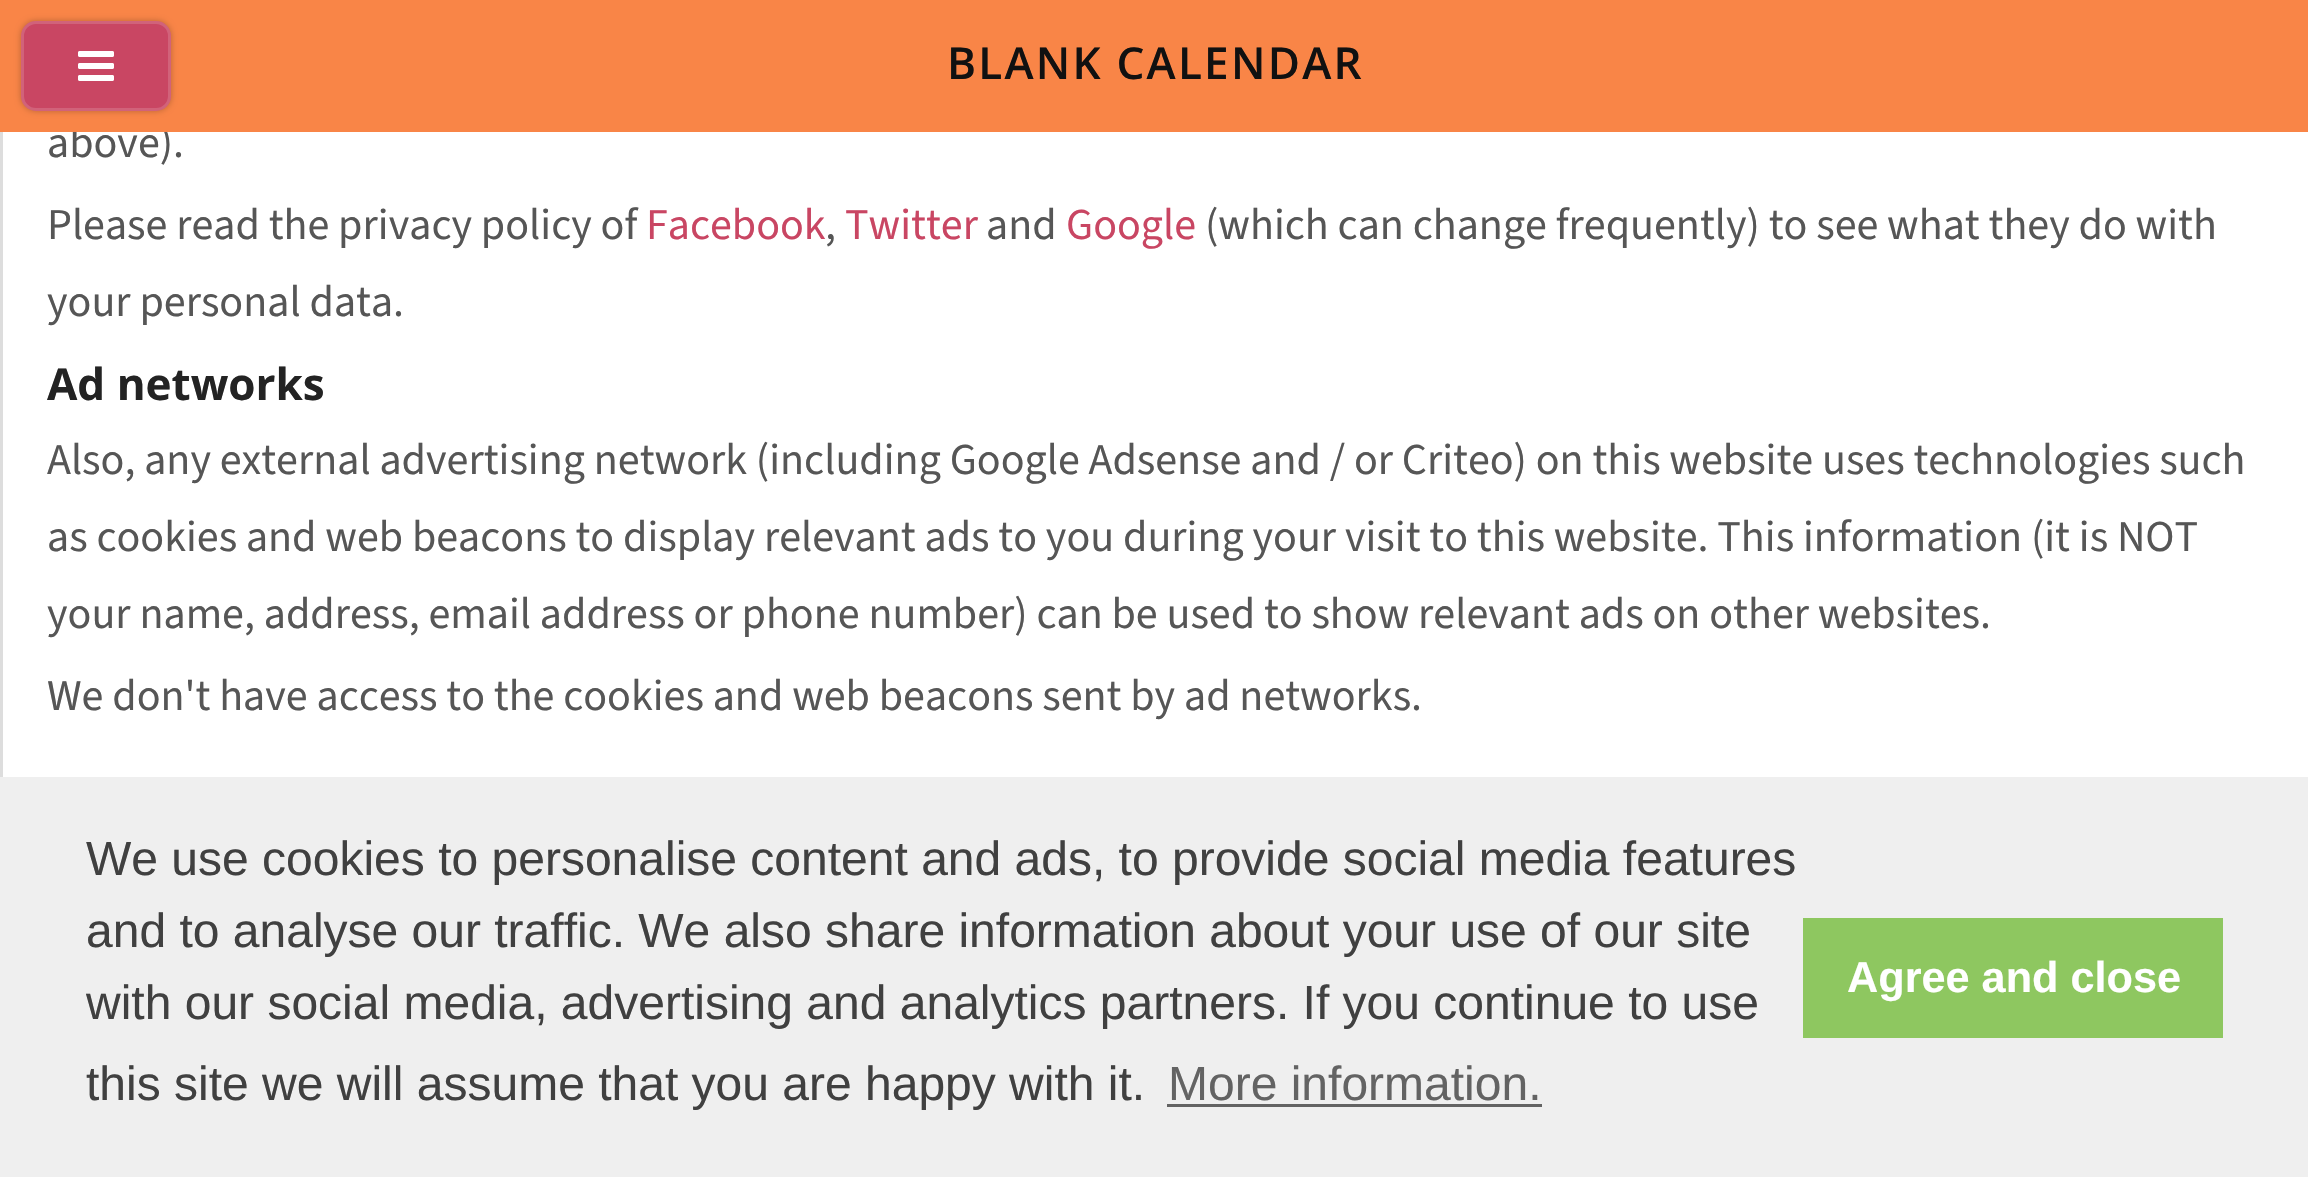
void draw(SkCanvas* canvas) {
    SkPaint paint;
    paint.setAntiAlias(true);
    auto face = [&](const char* family, int weight, float size, bool italic = false) {
        SkFontStyle style(weight, SkFontStyle::kNormal_Width,
            italic ? SkFontStyle::kItalic_Slant : SkFontStyle::kUpright_Slant);
        SkFont result(fontMgr->matchFamilyStyle(family, style), size);
        result.setSubpixel(true);
        return result;
    };
    auto write = [&](const char* s, float x, float y, const SkFont& font, SkColor color) {
        SkPaint ink(SkColor4f::FromColor(color));
        ink.setAntiAlias(true);
        canvas->drawString(s, x, y, font, ink);
    };
    auto writeSpaced = [&](const char* s, float x, float y, const SkFont& font, const SkPaint& ink, float letter, float word) {
        std::vector<SkGlyphID> glyphs(font.countText(s, strlen(s), SkTextEncoding::kUTF8));
        std::vector<float> xs(glyphs.size());
        font.textToGlyphs(s, strlen(s), SkTextEncoding::kUTF8, glyphs);
        font.getXPos(glyphs, xs, x);
        float extra = 0;
        for (size_t i = 0; i < glyphs.size(); i++) {
            xs[i] += extra;
            extra += letter + word * (glyphs[i] == font.unicharToGlyph(' '));
        }
        canvas->drawTextBlob(SkTextBlob::MakeFromPosHGlyphs(glyphs, xs, y, font), 0, 0, ink);
    };
    auto block = [&](float x, float y, float w, float h, SkColor color) {
        SkPaint ink(SkColor4f::FromColor(color));
        ink.setAntiAlias(true);
        canvas->drawRect(SkRect::MakeXYWH(x, y, w, h), ink);
    };
    auto card = [&](float x, float y, float w, float h, float radius, SkColor color) {
        SkPaint ink(SkColor4f::FromColor(color));
        ink.setAntiAlias(true);
        canvas->drawRoundRect(SkRect::MakeXYWH(x, y, w, h), radius, radius, ink);
    };
    auto paste = [&](const char* path, float x, float y, float w, float h) {
        auto image = SkImages::DeferredFromEncodedData(SkData::MakeFromFileName(path));
        canvas->drawImageRect(image, SkRect::MakeXYWH(x, y, w, h), SkSamplingOptions());
    };
    canvas->clear(SK_ColorWHITE);
    auto kFont1 = face("Source Sans 3", 400, 44);
    write("above).", 47, 157, kFont1, SkColorSetRGB(86, 86, 86));
    block(0, 0, 2308, 132, SkColorSetRGB(249, 133, 71));
    paint.setColor(SkColorSetARGB(64, 0, 0, 0));
    paint.setMaskFilter(SkMaskFilter::MakeBlur(kNormal_SkBlurStyle, 3));
    canvas->drawRoundRect(SkRect::MakeXYWH(21, 21, 150, 90), 15, 15, paint);
    paint.setMaskFilter(nullptr);
    card(21, 21, 150, 90, 15, SkColorSetRGB(201, 70, 99));
    paint.setStyle(SkPaint::kStroke_Style);
    paint.setStrokeWidth(3);
    paint.setColor(SkColorSetARGB(38, 255, 255, 255));
    canvas->drawRoundRect(SkRect::MakeXYWH(22.5f, 22.5f, 147, 87), 13.5f, 13.5f, paint);
    paste("pic1.png", 78, 51, 36, 30);
    auto kFont2 = face("Open Sans", 600, 44);
    paint.setStyle(SkPaint::kFill_Style);
    paint.setColor(SkColorSetRGB(17, 17, 17));
    writeSpaced("BLANK CALENDAR", 947, 79, kFont2, paint, 2.25f, 0);
    block(0, 132, 3, 645, SkColorSetRGB(221, 221, 221));
    write("Please read the privacy policy of", 47, 239, kFont1, SkColorSetRGB(86, 86, 86));
    write("Facebook", 646, 239, kFont1, SkColorSetRGB(201, 70, 99));
    write(",", 825, 239, kFont1, SkColorSetRGB(86, 86, 86));
    write("Twitter", 845, 239, kFont1, SkColorSetRGB(201, 70, 99));
    write("and", 986, 239, kFont1, SkColorSetRGB(86, 86, 86));
    write("Google", 1066, 239, kFont1, SkColorSetRGB(201, 70, 99));
    write("(which can change frequently) to see what they do with", 1205, 239, kFont1, SkColorSetRGB(86, 86, 86));
    write("your personal data.", 47, 316, kFont1, SkColorSetRGB(86, 86, 86));
    auto kFont3 = face("Open Sans", 700, 44);
    write("Ad networks", 47, 400, kFont3, SkColorSetRGB(35, 35, 35));
    write("Also, any external advertising network (including Google Adsense and / or Criteo) on this website uses technologies such", 47, 474, kFont1, SkColorSetRGB(86, 86, 86));
    write("as cookies and web beacons to display relevant ads to you during your visit to this website. This information (it is NOT", 47, 551, kFont1, SkColorSetRGB(86, 86, 86));
    write("your name, address, email address or phone number) can be used to show relevant ads on other websites.", 47, 628, kFont1, SkColorSetRGB(86, 86, 86));
    write("We don't have access to the cookies and web beacons sent by ad networks.", 47, 710, kFont1, SkColorSetRGB(86, 86, 86));
    block(0, 777, 2308, 400, SkColorSetRGB(239, 239, 239));
    auto kFont4 = face("Liberation Sans", 400, 48);
    write("We use cookies to personalise content and ads, to provide social media features", 86, 875, kFont4, SkColorSetRGB(64, 64, 64));
    write("and to analyse our traffic. We also share information about your use of our site", 86, 947, kFont4, SkColorSetRGB(64, 64, 64));
    write("with our social media, advertising and analytics partners. If you continue to use", 86, 1019, kFont4, SkColorSetRGB(64, 64, 64));
    write("this site we will assume that you are happy with it.", 86, 1100, kFont4, SkColorSetRGB(64, 64, 64));
    write("More information.", 1168, 1100, kFont4, SkColorSetRGB(99, 99, 99));
    block(1167, 1104, 375, 3, SkColorSetRGB(99, 99, 99));
    block(1803, 918, 420, 120, SkColorSetRGB(142, 199, 96));
    auto kFont5 = face("Liberation Sans", 700, 43.25f);
    write("Agree and close", 1847, 992, kFont5, SK_ColorWHITE);
}
